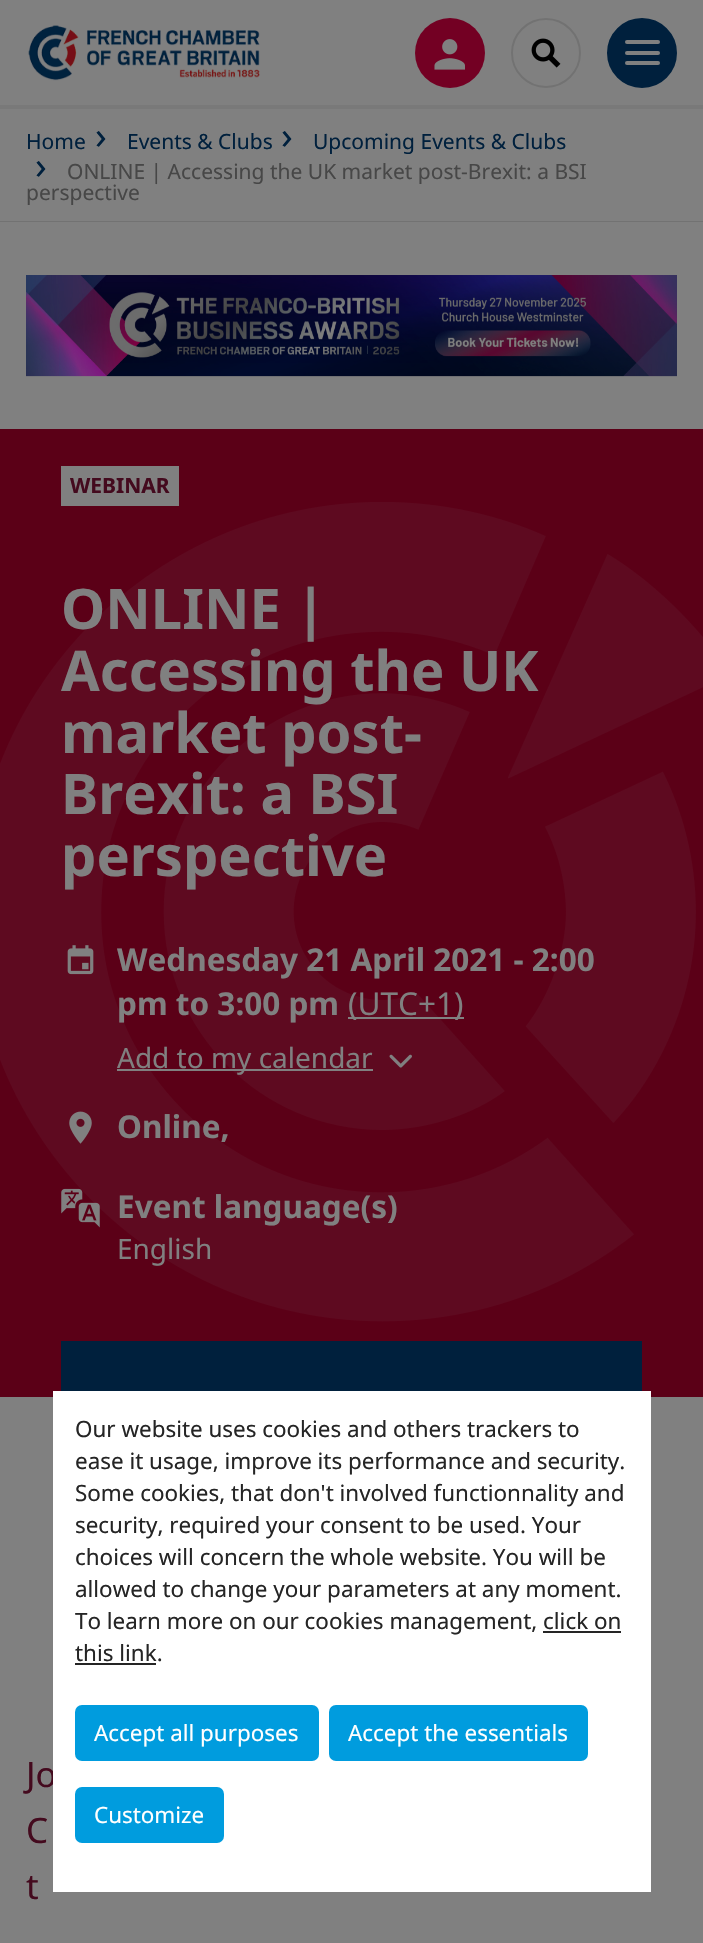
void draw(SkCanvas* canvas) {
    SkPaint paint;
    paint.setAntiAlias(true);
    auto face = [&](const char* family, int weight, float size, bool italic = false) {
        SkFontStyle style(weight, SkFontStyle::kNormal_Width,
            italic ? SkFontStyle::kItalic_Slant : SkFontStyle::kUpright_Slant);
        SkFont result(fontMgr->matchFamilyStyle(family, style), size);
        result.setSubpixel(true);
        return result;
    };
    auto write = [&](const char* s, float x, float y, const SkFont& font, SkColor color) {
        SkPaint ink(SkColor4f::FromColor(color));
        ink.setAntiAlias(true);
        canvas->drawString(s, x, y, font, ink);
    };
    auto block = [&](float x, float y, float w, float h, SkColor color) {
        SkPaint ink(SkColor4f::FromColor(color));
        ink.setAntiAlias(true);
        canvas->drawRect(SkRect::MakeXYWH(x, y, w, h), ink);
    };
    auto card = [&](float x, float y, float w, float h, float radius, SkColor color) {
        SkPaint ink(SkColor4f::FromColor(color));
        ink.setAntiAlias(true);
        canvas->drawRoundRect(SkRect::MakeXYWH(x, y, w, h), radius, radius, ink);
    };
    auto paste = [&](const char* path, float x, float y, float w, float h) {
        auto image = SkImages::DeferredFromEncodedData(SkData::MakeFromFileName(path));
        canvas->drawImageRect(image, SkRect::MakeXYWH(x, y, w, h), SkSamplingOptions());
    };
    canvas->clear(SkColorSetRGB(128, 128, 128));
    block(0, 105, 703, 4, SkColorSetRGB(121, 121, 121));
    paste("pic1.png", 28, 25, 232, 56);
    paint.setColor(SkColorSetRGB(115, 0, 35));
    canvas->drawCircle(450, 53, 35, paint);
    paste("pic2.png", 434, 39, 31, 31);
    paint.setStyle(SkPaint::kStroke_Style);
    paint.setStrokeWidth(2);
    paint.setColor(SkColorSetRGB(114, 114, 114));
    canvas->drawCircle(546, 53, 34, paint);
    paste("pic3.png", 531, 38, 30, 30);
    paint.setStyle(SkPaint::kFill_Style);
    paint.setColor(SkColorSetRGB(0, 32, 61));
    canvas->drawCircle(642, 53, 34, paint);
    paint.setStyle(SkPaint::kStroke_Style);
    canvas->drawCircle(642, 53, 34, paint);
    card(625, 40, 35, 4, 2, SkColorSetRGB(128, 128, 128));
    card(625, 51, 35, 4, 2, SkColorSetRGB(128, 128, 128));
    card(625, 61, 35, 4, 2, SkColorSetRGB(128, 128, 128));
    block(0, 221, 703, 1, SkColorSetRGB(114, 114, 114));
    auto kFont1 = face("Noto Sans", 400, 21);
    write("Home", 26, 149, kFont1, SkColorSetRGB(0, 32, 61));
    auto kFont2 = face("Noto Sans", 400, 38);
    write("›", 95, 149, kFont2, SkColorSetRGB(0, 32, 61));
    write("Events & Clubs", 127, 149, kFont1, SkColorSetRGB(0, 32, 61));
    write("›", 281, 149, kFont2, SkColorSetRGB(0, 32, 61));
    write("Upcoming Events & Clubs", 313, 149, kFont1, SkColorSetRGB(0, 32, 61));
    write("›", 35, 179, kFont2, SkColorSetRGB(0, 32, 61));
    write("ONLINE | Accessing the UK market post-Brexit: a BSI", 67, 179, kFont1, SkColorSetRGB(71, 71, 71));
    write("perspective", 26, 200, kFont1, SkColorSetRGB(71, 71, 71));
    paste("pic4.png", 26, 275, 651, 102);
    block(0, 429, 703, 968, SkColorSetRGB(91, 0, 23));
    paste("pic5.png", 0, 502, 703, 820);
    block(61, 466, 118, 40, SkColorSetRGB(128, 128, 128));
    auto kFont3 = face("Noto Sans", 700, 21);
    write("WEBINAR", 70, 493, kFont3, SkColorSetRGB(68, 10, 30));
    auto kFont4 = face("Noto Sans", 700, 56);
    write("ONLINE |", 61, 629, kFont4, SkColorSetRGB(128, 128, 128));
    write("Accessing the UK", 61, 691, kFont4, SkColorSetRGB(128, 128, 128));
    write("market post-", 61, 753, kFont4, SkColorSetRGB(128, 128, 128));
    write("Brexit: a BSI", 61, 814, kFont4, SkColorSetRGB(128, 128, 128));
    write("perspective", 61, 876, kFont4, SkColorSetRGB(128, 128, 128));
    paste("pic6.png", 67, 945, 27, 30);
    auto kFont5 = face("Noto Sans", 700, 31.5f);
    write("Wednesday 21 April 2021 - 2:00", 117, 971, kFont5, SkColorSetRGB(128, 128, 128));
    write("pm to 3:00 pm", 117, 1015, kFont5, SkColorSetRGB(128, 128, 128));
    block(348, 1017, 116, 2, SkColorSetRGB(128, 128, 128));
    auto kFont6 = face("Noto Sans", 400, 31.5f);
    write("(UTC+1)", 348, 1015, kFont6, SkColorSetRGB(128, 128, 128));
    block(117, 1069, 256, 2, SkColorSetRGB(128, 128, 128));
    auto kFont7 = face("Noto Sans", 400, 28);
    write("Add to my calendar", 117, 1068, kFont7, SkColorSetRGB(128, 128, 128));
    paste("pic7.png", 389, 1054, 23, 14);
    paste("pic8.png", 69, 1111, 23, 33);
    write("Online,", 117, 1138, kFont5, SkColorSetRGB(128, 128, 128));
    paste("pic9.png", 61, 1188, 39, 40);
    write("Event language(s)", 117, 1218, kFont5, SkColorSetRGB(128, 128, 128));
    write("English", 117, 1259, kFont7, SkColorSetRGB(128, 128, 128));
    block(61, 1341, 581, 50, SkColorSetRGB(0, 32, 61));
    auto kFont8 = face("Noto Sans", 400, 35);
    write("Jo", 26, 1787, kFont8, SkColorSetRGB(68, 10, 30));
    write("C", 26, 1843, kFont8, SkColorSetRGB(68, 10, 30));
    write("t", 26, 1899, kFont8, SkColorSetRGB(68, 10, 30));
    block(53, 1391, 598, 501, SK_ColorWHITE);
    auto kFont9 = face("Noto Sans", 400, 22.4f);
    write("Our website uses cookies and others trackers to", 75, 1437, kFont9, SkColorSetRGB(37, 37, 37));
    write("ease it usage, improve its performance and security.", 75, 1469, kFont9, SkColorSetRGB(37, 37, 37));
    write("Some cookies, that don't involved functionnality and", 75, 1501, kFont9, SkColorSetRGB(37, 37, 37));
    write("security, required your consent to be used. Your", 75, 1533, kFont9, SkColorSetRGB(37, 37, 37));
    write("choices will concern the whole website. You will be", 75, 1565, kFont9, SkColorSetRGB(37, 37, 37));
    write("allowed to change your parameters at any moment.", 75, 1597, kFont9, SkColorSetRGB(37, 37, 37));
    write("To learn more on our cookies management, click on", 75, 1629, kFont9, SkColorSetRGB(37, 37, 37));
    write("this link.", 75, 1661, kFont9, SkColorSetRGB(37, 37, 37));
    block(543, 1631, 78, 2, SkColorSetRGB(37, 37, 37));
    block(75, 1663, 81, 2, SkColorSetRGB(37, 37, 37));
    card(75, 1705, 244, 56, 7, SkColorSetRGB(0, 156, 222));
    write("Accept all purposes", 94, 1741, kFont9, SK_ColorWHITE);
    card(329, 1705, 259, 56, 7, SkColorSetRGB(0, 156, 222));
    write("Accept the essentials", 348, 1741, kFont9, SK_ColorWHITE);
    card(75, 1787, 149, 56, 7, SkColorSetRGB(0, 156, 222));
    write("Customize", 94, 1823, kFont9, SK_ColorWHITE);
}
